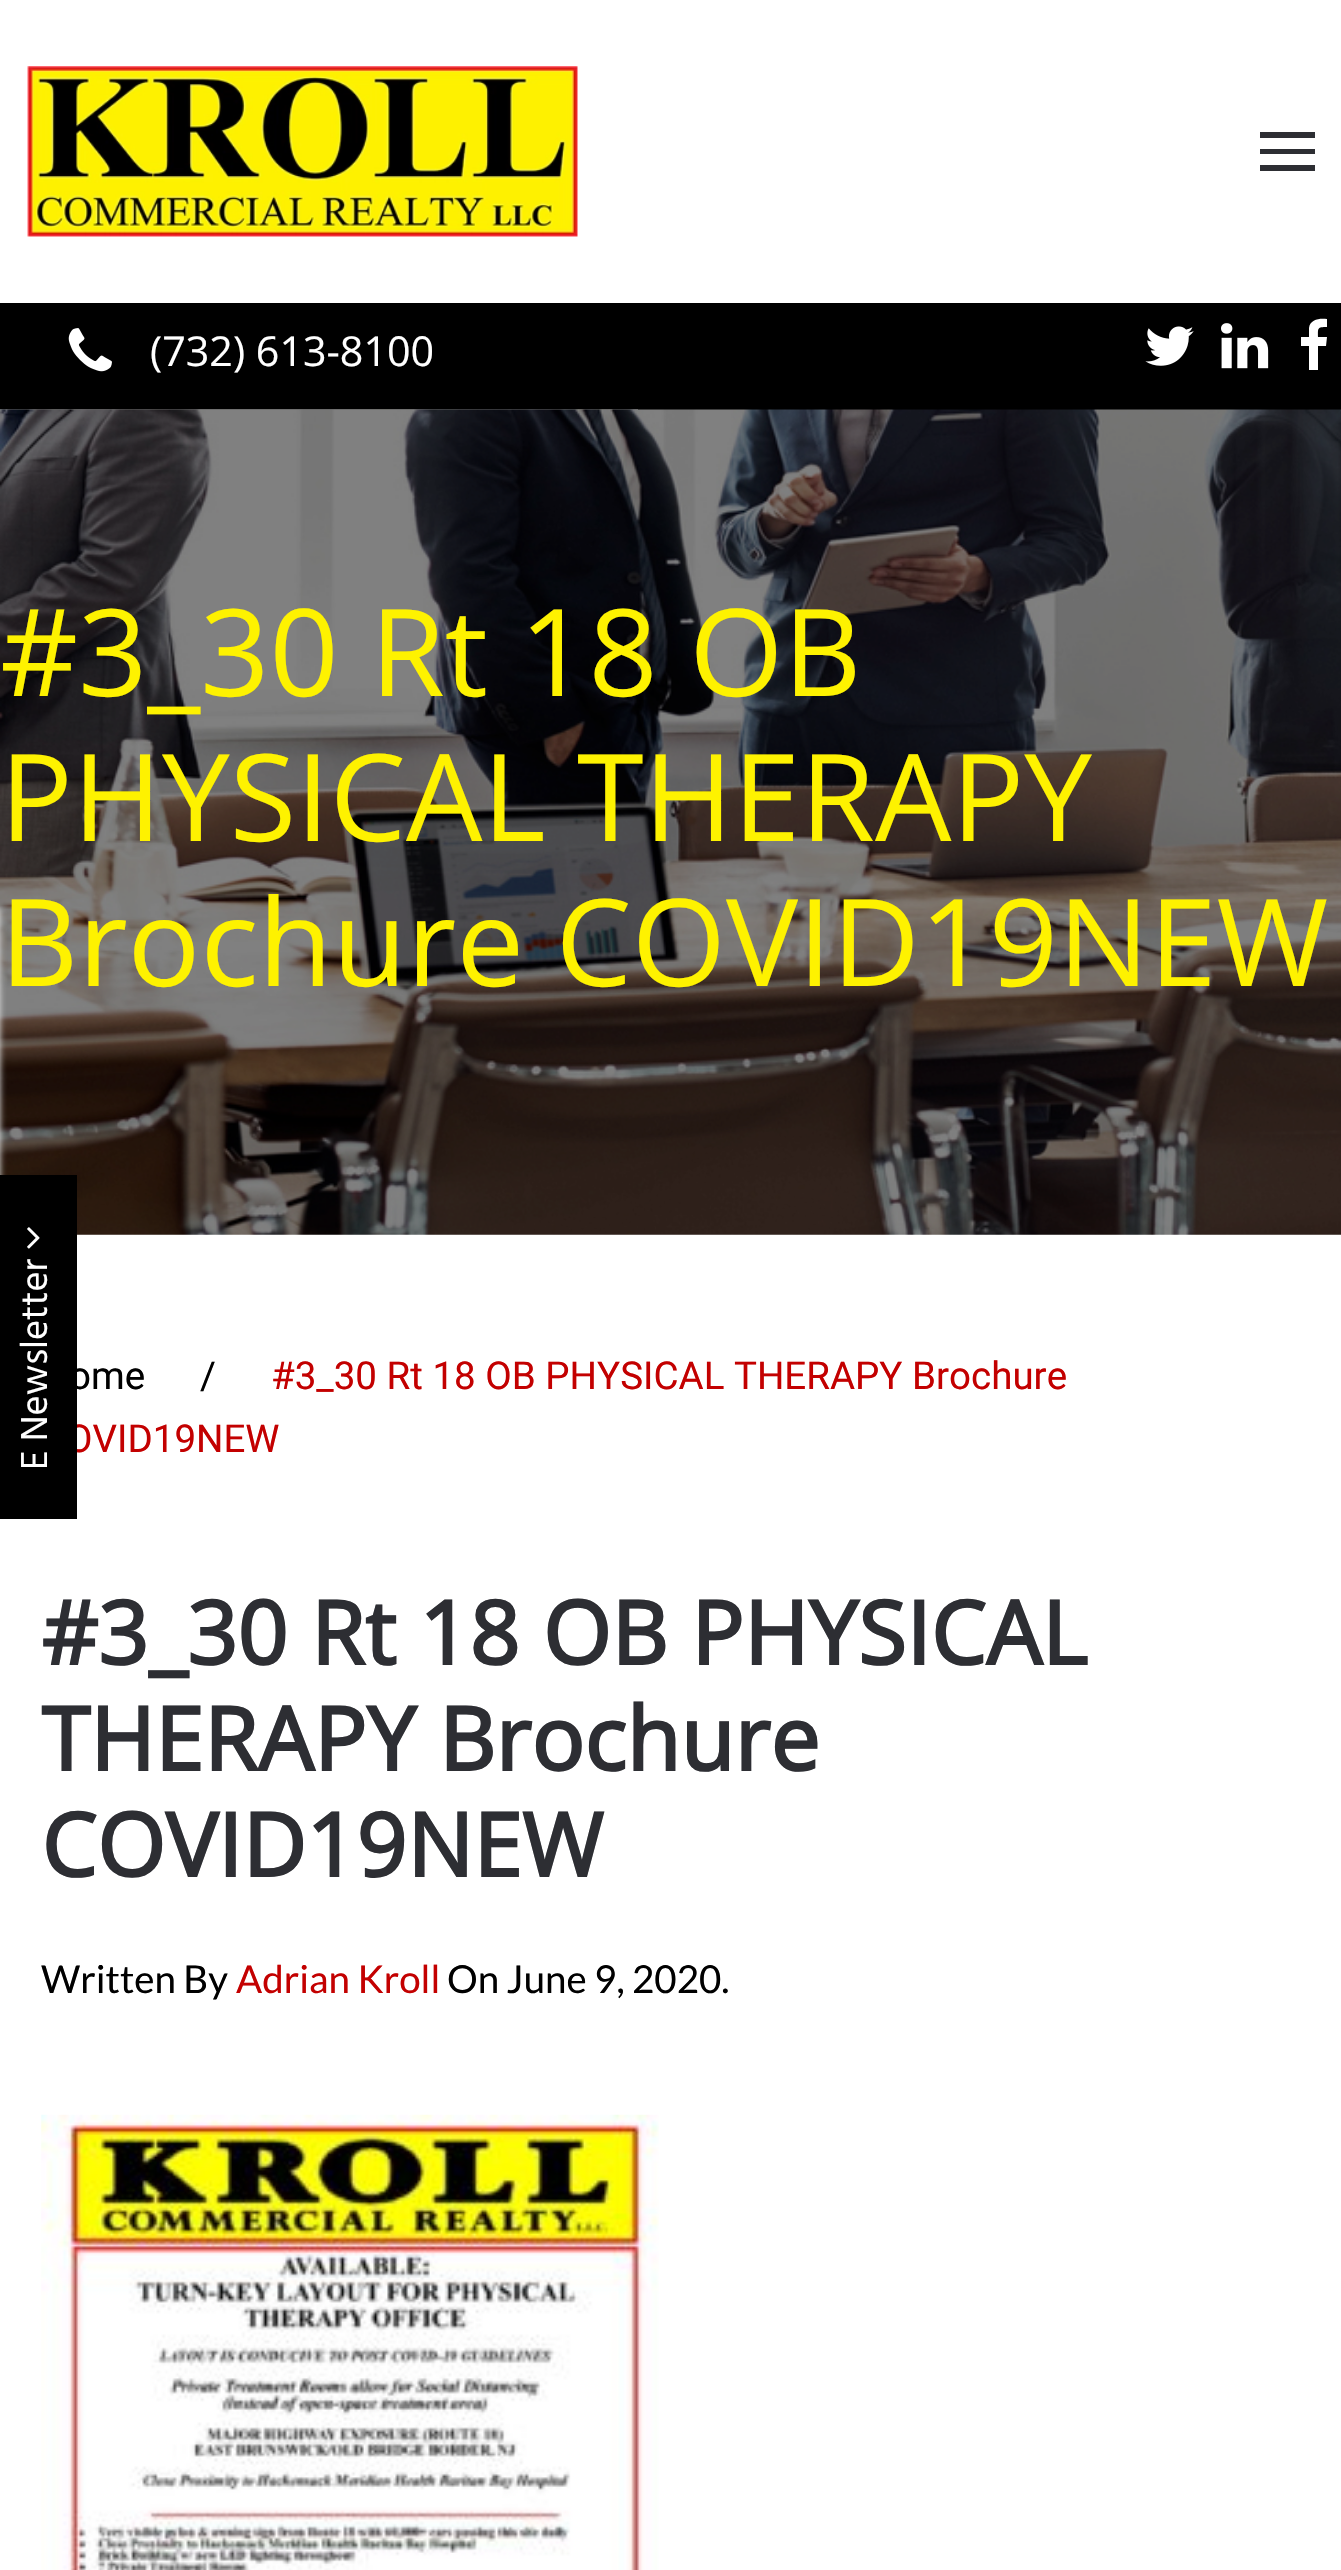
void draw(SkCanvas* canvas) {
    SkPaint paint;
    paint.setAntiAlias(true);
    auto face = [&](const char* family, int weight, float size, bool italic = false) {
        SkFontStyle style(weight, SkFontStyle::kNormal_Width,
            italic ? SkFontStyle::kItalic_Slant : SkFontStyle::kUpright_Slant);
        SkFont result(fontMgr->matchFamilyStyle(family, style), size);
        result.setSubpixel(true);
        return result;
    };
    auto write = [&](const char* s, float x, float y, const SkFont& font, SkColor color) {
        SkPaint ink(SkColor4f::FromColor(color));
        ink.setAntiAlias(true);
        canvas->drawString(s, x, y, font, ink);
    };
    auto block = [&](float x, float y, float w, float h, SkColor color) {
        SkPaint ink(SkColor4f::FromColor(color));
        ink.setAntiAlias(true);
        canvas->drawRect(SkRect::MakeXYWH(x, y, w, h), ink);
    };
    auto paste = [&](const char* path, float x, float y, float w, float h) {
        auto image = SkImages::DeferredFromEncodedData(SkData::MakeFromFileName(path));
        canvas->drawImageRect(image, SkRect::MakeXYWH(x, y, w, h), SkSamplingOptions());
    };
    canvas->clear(SK_ColorWHITE);
    paste("pic1.png", 27, 66, 551, 171);
    block(1260, 132, 55, 6, SkColorSetRGB(45, 46, 51));
    block(1260, 149, 55, 5, SkColorSetRGB(45, 46, 51));
    block(1260, 165, 55, 6, SkColorSetRGB(45, 46, 51));
    block(0, 303, 1341, 107, SK_ColorBLACK);
    paste("pic2.png", 68, 328, 44, 44);
    auto kFont1 = face("Open Sans", 400, 41.25f);
    write("(732) 613-8100", 150, 366, kFont1, SK_ColorWHITE);
    paste("pic3.png", 1145, 326, 49, 40);
    paste("pic4.png", 1221, 323, 48, 46);
    paint.setColor(SK_ColorWHITE);
    canvas->drawPath(SkPathBuilder().moveTo(1327, 319).lineTo(1327, 327).cubicTo(1317, 327, 1318, 328, 1318, 337).lineTo(1327, 337).lineTo(1326, 346).lineTo(1318, 346).lineTo(1318, 370).lineTo(1309, 370).lineTo(1309, 346).lineTo(1301, 346).lineTo(1301, 337).lineTo(1309, 337).lineTo(1309, 328).cubicTo(1310, 319, 1320, 318, 1327, 319).close().detach(), paint);
    paste("pic6.png", 0, 409, 638, 1);
    paste("pic5.png", 0, 409, 1341, 826);
    auto kFont2 = face("Open Sans", 400, 121);
    write("#3_30 Rt 18 OB", 0, 696, kFont2, SkColorSetRGB(254, 242, 0));
    write("PHYSICAL THERAPY", 0, 841, kFont2, SkColorSetRGB(254, 242, 0));
    write("Brochure COVID19NEW", 0, 986, kFont2, SkColorSetRGB(254, 242, 0));
    paint.setColor(SkColorSetRGB(221, 221, 221));
    paint.setMaskFilter(SkMaskFilter::MakeBlur(kNormal_SkBlurStyle, 3));
    canvas->drawRect(SkRect::MakeXYWH(-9, 908, 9, 605), paint);
    paint.setMaskFilter(nullptr);
    auto kFont3 = face("Roboto", 400, 38.5f);
    write("OVID19NEW", 66, 1452, kFont3, SkColorSetRGB(195, 0, 0));
    block(0, 1175, 77, 344, SK_ColorBLACK);
    paste("pic7.png", 27, 1227, 13, 22);
    auto kFont4 = face("Hind", 400, 38.5f);
    canvas->save();
    canvas->rotate(-90, 47, 1470);
    write("E Newsletter", 47, 1470, kFont4, SK_ColorWHITE);
    canvas->restore();
    write("/", 200, 1389, kFont3, SK_ColorBLACK);
    write("#3_30 Rt 18 OB PHYSICAL THERAPY Brochure", 271, 1389, kFont3, SkColorSetRGB(195, 0, 0));
    write("ome", 69, 1389, kFont3, SK_ColorBLACK);
    auto kFont5 = face("Open Sans", 700, 88);
    write("#3_30 Rt 18 OB PHYSICAL", 41, 1665, kFont5, SkColorSetRGB(45, 46, 51));
    write("THERAPY Brochure", 41, 1771, kFont5, SkColorSetRGB(45, 46, 51));
    write("COVID19NEW", 41, 1877, kFont5, SkColorSetRGB(45, 46, 51));
    auto kFont6 = face("Lato", 400, 38.5f);
    write("Written By", 41, 1993, kFont6, SK_ColorBLACK);
    write("Adrian Kroll", 236, 1993, kFont6, SkColorSetRGB(195, 0, 0));
    write("On June 9, 2020.", 447, 1993, kFont6, SK_ColorBLACK);
    paste("pic8.png", 41, 2114, 618, 456);
}
